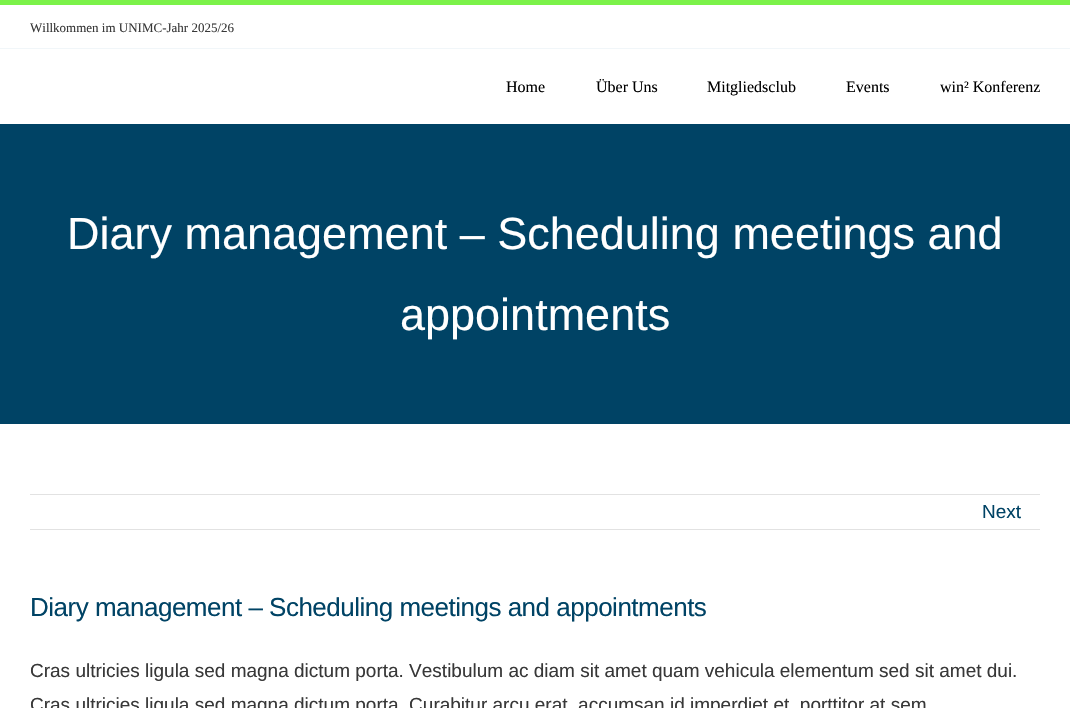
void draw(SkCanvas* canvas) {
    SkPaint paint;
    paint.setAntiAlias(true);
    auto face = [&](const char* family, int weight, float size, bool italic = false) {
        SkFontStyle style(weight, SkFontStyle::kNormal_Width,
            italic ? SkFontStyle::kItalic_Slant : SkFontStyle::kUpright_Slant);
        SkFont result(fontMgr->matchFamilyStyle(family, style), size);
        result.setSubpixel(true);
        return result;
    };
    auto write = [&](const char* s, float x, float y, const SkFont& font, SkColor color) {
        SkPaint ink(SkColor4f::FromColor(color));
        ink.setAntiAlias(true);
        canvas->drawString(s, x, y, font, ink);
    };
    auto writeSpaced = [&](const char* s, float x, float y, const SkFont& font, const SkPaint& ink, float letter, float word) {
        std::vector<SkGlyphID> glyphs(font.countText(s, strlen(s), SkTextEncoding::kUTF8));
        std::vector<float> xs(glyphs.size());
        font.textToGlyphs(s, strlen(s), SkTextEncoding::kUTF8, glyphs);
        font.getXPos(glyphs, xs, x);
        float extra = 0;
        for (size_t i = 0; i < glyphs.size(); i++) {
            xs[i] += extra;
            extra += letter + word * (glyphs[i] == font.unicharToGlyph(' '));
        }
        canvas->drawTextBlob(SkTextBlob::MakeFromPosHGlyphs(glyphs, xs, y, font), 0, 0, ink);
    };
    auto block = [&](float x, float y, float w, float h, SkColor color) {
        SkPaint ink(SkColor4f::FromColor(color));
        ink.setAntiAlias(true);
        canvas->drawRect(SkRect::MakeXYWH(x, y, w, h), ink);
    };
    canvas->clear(SK_ColorWHITE);
    block(0, 0, 1070, 5, SkColorSetRGB(123, 242, 73));
    auto kFont1 = face("Liberation Serif", 400, 13);
    write("Willkommen im UNIMC-Jahr 2025/26", 30, 32, kFont1, SkColorSetRGB(56, 56, 56));
    block(0, 48, 1070, 1, SkColorSetRGB(241, 246, 249));
    auto kFont2 = face("Liberation Serif", 400, 16);
    write("Home", 506, 92, kFont2, SK_ColorBLACK);
    write("Über Uns", 596, 92, kFont2, SK_ColorBLACK);
    write("Mitgliedsclub", 707, 92, kFont2, SK_ColorBLACK);
    write("Events", 846, 92, kFont2, SK_ColorBLACK);
    write("win² Konferenz", 940, 92, kFont2, SK_ColorBLACK);
    block(0, 124, 1070, 300, SkColorSetRGB(0, 67, 101));
    auto kFont3 = face("Liberation Sans", 400, 45);
    write("Diary management – Scheduling meetings and", 67, 249, kFont3, SK_ColorWHITE);
    write("appointments", 400, 330, kFont3, SK_ColorWHITE);
    block(30, 494, 1010, 1, SkColorSetRGB(226, 226, 226));
    block(30, 529, 1010, 1, SkColorSetRGB(226, 226, 226));
    auto kFont4 = face("Liberation Sans", 400, 19);
    write("Next", 982, 518, kFont4, SkColorSetRGB(0, 67, 101));
    auto kFont5 = face("Liberation Sans", 400, 26);
    paint.setColor(SkColorSetRGB(0, 67, 101));
    writeSpaced("Diary management – Scheduling meetings and appointments", 30, 616, kFont5, paint, -0.5f, 0);
    write("Cras ultricies ligula sed magna dictum porta. Vestibulum ac diam sit amet quam vehicula elementum sed sit amet dui.", 30, 677, kFont4, SkColorSetRGB(56, 56, 56));
    write("Cras ultricies ligula sed magna dictum porta. Curabitur arcu erat, accumsan id imperdiet et, porttitor at sem", 30, 711, kFont4, SkColorSetRGB(56, 56, 56));
}
